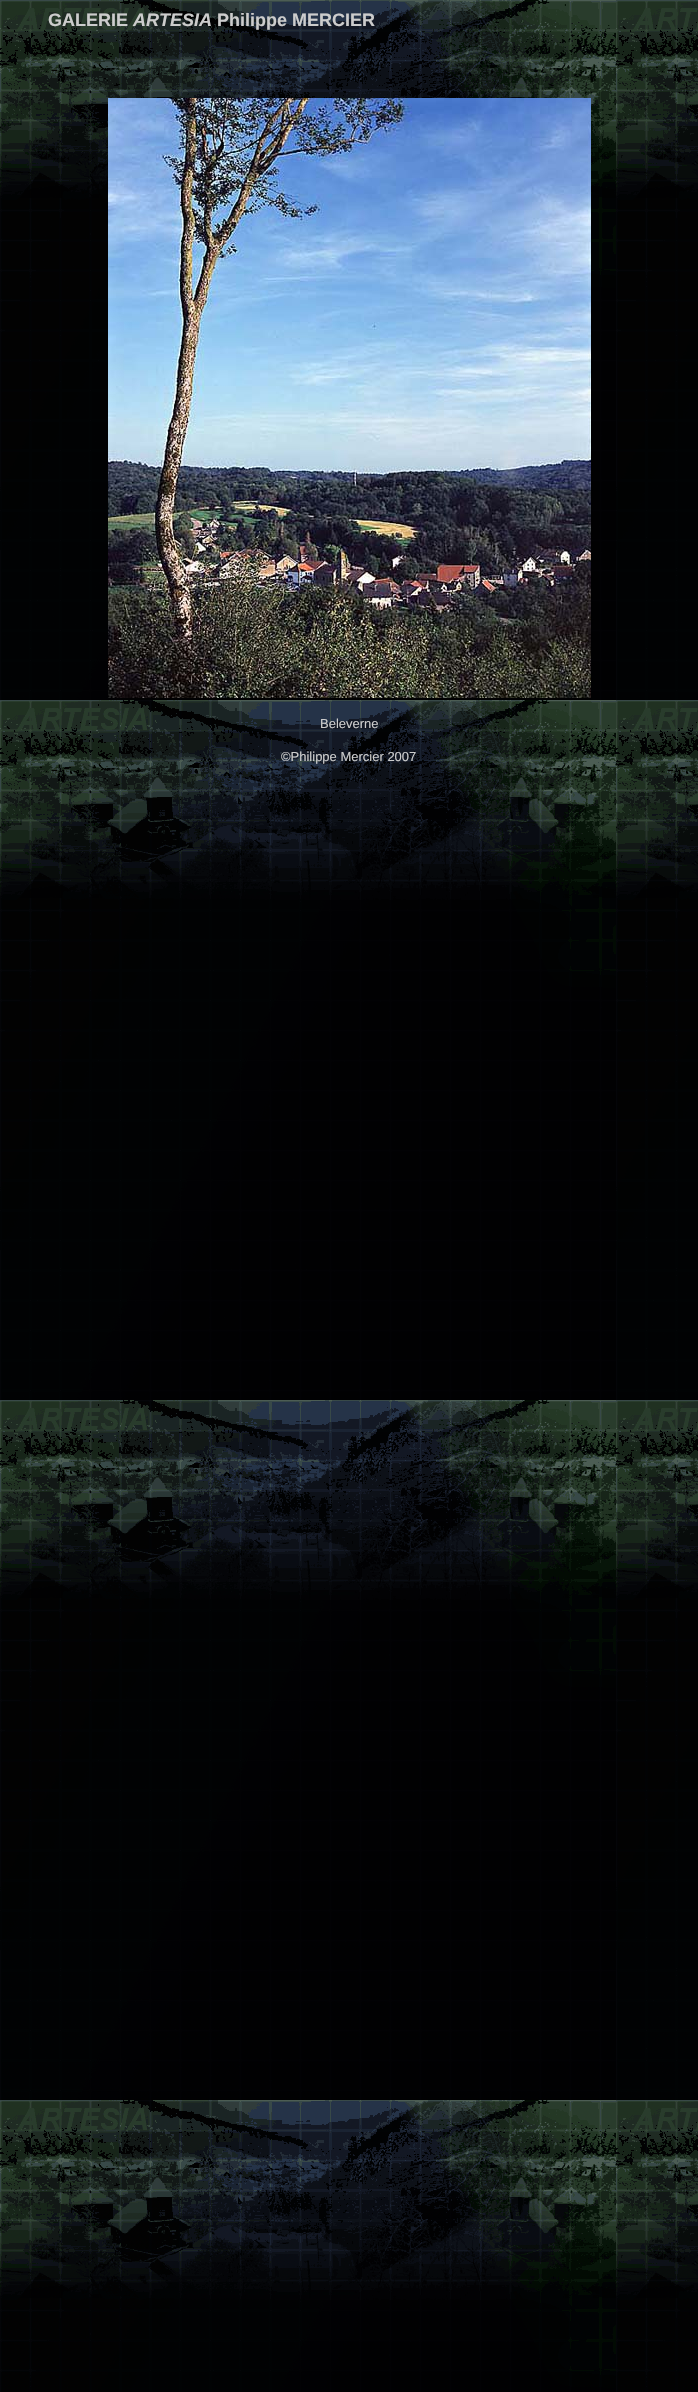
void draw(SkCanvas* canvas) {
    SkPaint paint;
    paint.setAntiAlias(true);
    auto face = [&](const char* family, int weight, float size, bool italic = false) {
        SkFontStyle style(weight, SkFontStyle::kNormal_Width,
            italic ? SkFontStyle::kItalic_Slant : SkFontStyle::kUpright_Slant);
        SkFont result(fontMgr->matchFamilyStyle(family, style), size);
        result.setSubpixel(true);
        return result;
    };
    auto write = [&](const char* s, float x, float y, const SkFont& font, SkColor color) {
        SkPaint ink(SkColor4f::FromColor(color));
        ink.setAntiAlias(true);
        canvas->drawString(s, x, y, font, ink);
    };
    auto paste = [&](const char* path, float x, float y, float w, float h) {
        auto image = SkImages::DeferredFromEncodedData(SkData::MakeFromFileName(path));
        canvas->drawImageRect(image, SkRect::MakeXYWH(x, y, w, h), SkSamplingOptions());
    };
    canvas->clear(SK_ColorWHITE);
    paste("pic1.png", 0, 0, 698, 2392);
    auto kFont1 = face("Liberation Sans", 700, 18);
    write("GALERIE", 48, 26, kFont1, SkColorSetRGB(204, 204, 204));
    auto kFont2 = face("Liberation Sans", 700, 18, true);
    write("ARTESIA", 133, 26, kFont2, SkColorSetRGB(204, 204, 204));
    write("Philippe MERCIER", 217, 26, kFont1, SkColorSetRGB(204, 204, 204));
    paste("pic2.png", 108, 98, 483, 600);
    auto kFont3 = face("Liberation Sans", 400, 13);
    write("Beleverne", 320, 728, kFont3, SkColorSetRGB(204, 204, 204));
    write("©Philippe Mercier 2007", 281, 761, kFont3, SkColorSetRGB(204, 204, 204));
}
